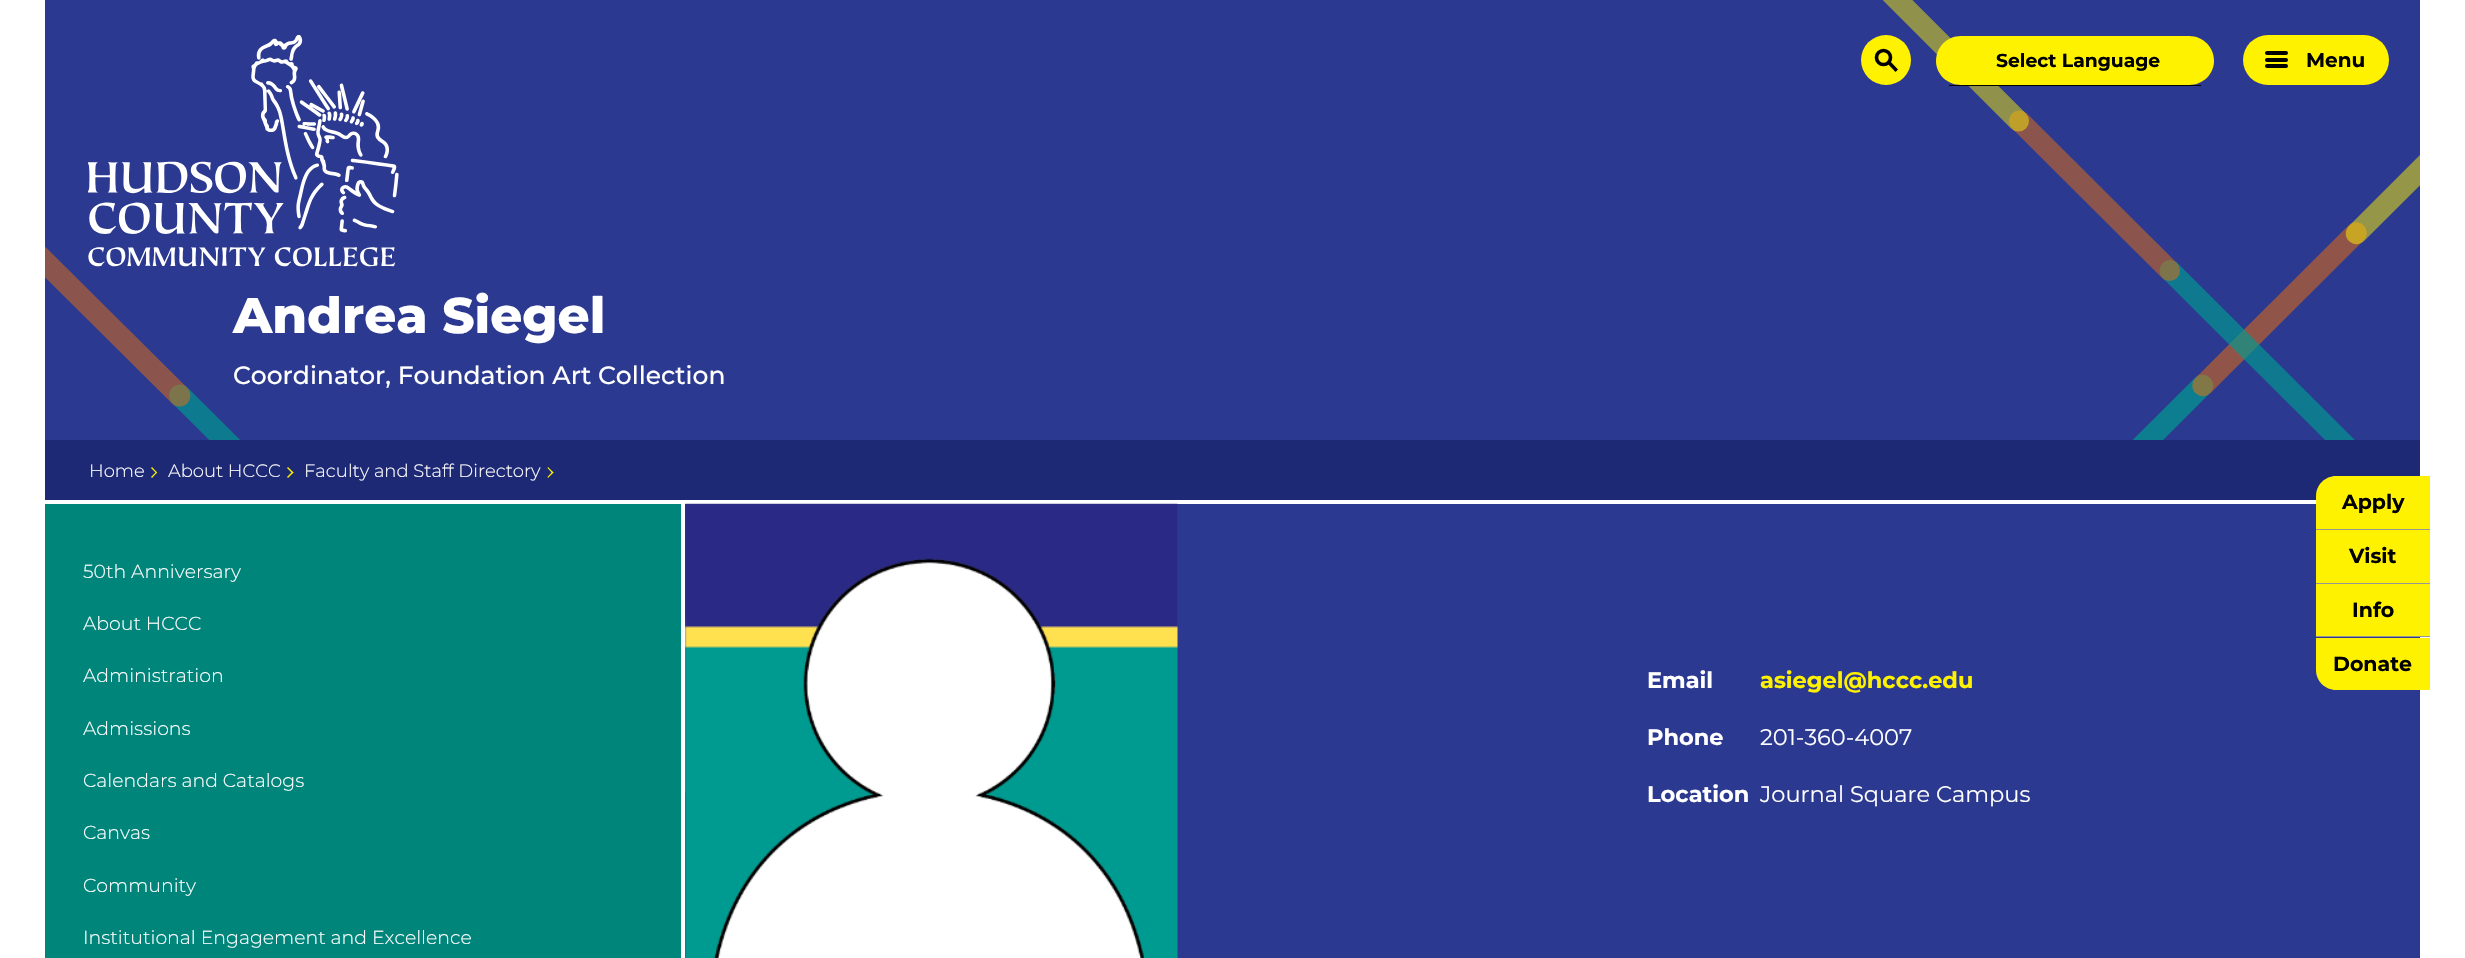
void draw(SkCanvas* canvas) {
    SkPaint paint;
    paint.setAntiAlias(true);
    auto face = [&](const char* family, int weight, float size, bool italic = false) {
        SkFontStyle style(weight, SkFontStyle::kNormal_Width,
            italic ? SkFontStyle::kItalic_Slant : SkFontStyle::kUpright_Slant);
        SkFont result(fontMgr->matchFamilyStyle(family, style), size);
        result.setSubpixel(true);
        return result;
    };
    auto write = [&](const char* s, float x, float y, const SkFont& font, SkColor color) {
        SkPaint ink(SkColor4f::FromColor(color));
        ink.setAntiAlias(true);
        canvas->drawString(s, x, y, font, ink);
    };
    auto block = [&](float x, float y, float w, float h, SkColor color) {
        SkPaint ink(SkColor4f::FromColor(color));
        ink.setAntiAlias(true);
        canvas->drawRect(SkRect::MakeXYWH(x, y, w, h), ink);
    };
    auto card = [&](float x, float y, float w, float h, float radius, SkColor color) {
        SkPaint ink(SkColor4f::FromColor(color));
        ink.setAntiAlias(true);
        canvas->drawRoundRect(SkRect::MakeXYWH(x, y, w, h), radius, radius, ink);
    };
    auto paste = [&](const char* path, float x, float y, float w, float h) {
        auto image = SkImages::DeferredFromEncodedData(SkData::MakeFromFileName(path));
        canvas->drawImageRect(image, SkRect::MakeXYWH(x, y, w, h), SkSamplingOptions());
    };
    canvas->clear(SK_ColorWHITE);
    block(45, 0, 2375, 440, SkColorSetRGB(43, 57, 144));
    canvas->save();
    canvas->clipRect(SkRect::MakeXYWH(1866, 48, 554, 392));
    paint.setStyle(SkPaint::kStroke_Style);
    paint.setStrokeWidth(21.4f);
    paint.setStrokeCap(SkPaint::kRound_Cap);
    paint.setColor(SkColorSetRGB(13, 126, 143));
    canvas->drawPath(SkPathBuilder().moveTo(2008, 579.5f).lineTo(2202.5f, 385.5f).detach(), paint);
    canvas->restore();
    paint.setColor(SkColorSetARGB(128, 244, 112, 0));
    canvas->drawPath(SkPathBuilder().moveTo(2203, 385.5f).lineTo(2356, 233).detach(), paint);
    canvas->save();
    canvas->clipRect(SkRect::MakeXYWH(1838, 0, 582, 440));
    paint.setStrokeWidth(21);
    paint.setColor(SkColorSetARGB(168, 0, 155, 143));
    canvas->drawPath(SkPathBuilder().moveTo(2361, 461).lineTo(2170, 270.5f).detach(), paint);
    canvas->restore();
    paint.setColor(SkColorSetARGB(128, 234, 109, 7));
    canvas->drawPath(SkPathBuilder().moveTo(2169.5f, 270.5f).lineTo(2019.5f, 121).detach(), paint);
    paint.setColor(SkColorSetARGB(128, 244, 233, 7));
    canvas->drawPath(SkPathBuilder().moveTo(2018.5f, 121).lineTo(1849, -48.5f).detach(), paint);
    canvas->save();
    canvas->clipRect(SkRect::MakeXYWH(45, 51, 478, 389));
    paint.setStrokeWidth(21.8f);
    paint.setColor(SkColorSetRGB(14, 122, 143));
    canvas->drawPath(SkPathBuilder().moveTo(378.5f, 593).lineTo(180, 395.5f).detach(), paint);
    paint.setColor(SkColorSetARGB(128, 234, 109, 7));
    canvas->drawPath(SkPathBuilder().moveTo(179.5f, 395.5f).lineTo(23.5f, 240.5f).detach(), paint);
    canvas->restore();
    canvas->save();
    canvas->clipRect(SkRect::MakeXYWH(1866, 48, 554, 392));
    paint.setStrokeWidth(21.4f);
    paint.setColor(SkColorSetARGB(128, 255, 242, 0));
    canvas->drawPath(SkPathBuilder().moveTo(2356.5f, 233.5f).lineTo(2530, 60.5f).detach(), paint);
    canvas->restore();
    auto kFont1 = face("Montserrat", 800, 50);
    write("Andrea Siegel", 233, 333, kFont1, SK_ColorWHITE);
    auto kFont2 = face("Montserrat", 500, 25);
    write("Coordinator, Foundation Art Collection", 233, 384, kFont2, SK_ColorWHITE);
    block(45, 440, 2375, 60, SkColorSetRGB(29, 41, 116));
    auto kFont3 = face("Montserrat", 300, 18);
    write("Home", 89, 477, kFont3, SK_ColorWHITE);
    paint.setStyle(SkPaint::kFill_Style);
    paint.setColor(SkColorSetRGB(255, 242, 0));
    canvas->drawPath(SkPathBuilder().moveTo(152, 467).lineTo(157, 472.5f).lineTo(156.5f, 473.5f).lineTo(151, 468).close().detach(), paint);
    canvas->drawPath(SkPathBuilder().moveTo(156.5f, 471.5f).lineTo(157, 472.5f).lineTo(152, 478).lineTo(151, 477).close().detach(), paint);
    write("About HCCC", 168, 477, kFont3, SK_ColorWHITE);
    canvas->drawPath(SkPathBuilder().moveTo(288, 467).lineTo(293.5f, 472.5f).lineTo(292.5f, 473.5f).lineTo(287, 468).close().detach(), paint);
    canvas->drawPath(SkPathBuilder().moveTo(292.5f, 471.5f).lineTo(293.5f, 472.5f).lineTo(288, 478).lineTo(287, 477).close().detach(), paint);
    write("Faculty and Staff Directory", 304, 477, kFont3, SK_ColorWHITE);
    canvas->drawPath(SkPathBuilder().moveTo(548, 467).lineTo(553.5f, 472.5f).lineTo(552.5f, 473.5f).lineTo(547.5f, 468).close().detach(), paint);
    canvas->drawPath(SkPathBuilder().moveTo(552.5f, 471.5f).lineTo(553.5f, 472.5f).lineTo(548, 478).lineTo(547.5f, 477).close().detach(), paint);
    block(45, 504, 636, 454, SkColorSetRGB(0, 133, 122));
    auto kFont4 = face("Montserrat", 300, 18.9f);
    write("50th Anniversary", 83, 578, kFont4, SK_ColorWHITE);
    write("About HCCC", 83, 630, kFont4, SK_ColorWHITE);
    write("Administration", 83, 682, kFont4, SK_ColorWHITE);
    write("Admissions", 83, 735, kFont4, SK_ColorWHITE);
    write("Calendars and Catalogs", 83, 787, kFont4, SK_ColorWHITE);
    write("Canvas", 83, 839, kFont4, SK_ColorWHITE);
    write("Community", 83, 892, kFont4, SK_ColorWHITE);
    write("Institutional Engagement and Excellence", 83, 944, kFont4, SK_ColorWHITE);
    block(685, 504, 1735, 454, SkColorSetRGB(43, 57, 144));
    paste("pic1.png", 685, 503, 493, 455);
    auto kFont5 = face("Montserrat", 700, 22.5f);
    write("Email", 1647, 688, kFont5, SK_ColorWHITE);
    write("asiegel@hccc.edu", 1760, 688, kFont5, SkColorSetRGB(255, 242, 0));
    write("Phone", 1647, 745, kFont5, SK_ColorWHITE);
    auto kFont6 = face("Montserrat", 400, 22.5f);
    write("201-360-4007", 1760, 745, kFont6, SK_ColorWHITE);
    write("Location", 1647, 802, kFont5, SK_ColorWHITE);
    write("Journal Square Campus", 1760, 802, kFont6, SK_ColorWHITE);
    paste("pic2.png", 88, 35, 311, 232);
    canvas->drawCircle(1886, 60, 25, paint);
    paint.setColor(SK_ColorBLACK);
    canvas->drawPath(SkPathBuilder(SkPathFillType::kEvenOdd).moveTo(1889, 60).lineTo(1898, 69.5f).lineTo(1895.5f, 72).lineTo(1886.5f, 62.5f).close().detach(), paint);
    paint.setStyle(SkPaint::kStroke_Style);
    paint.setStrokeWidth(3.6f);
    paint.setStrokeCap(SkPaint::kButt_Cap);
    canvas->drawCircle(1883.5f, 57.5f, 7, paint);
    paint.setStyle(SkPaint::kFill_Style);
    paint.setColor(SkColorSetRGB(255, 242, 0));
    canvas->drawPath(SkPathBuilder().moveTo(1961, 36).lineTo(2189, 36).cubicTo(2203, 36, 2214, 47, 2214, 61).cubicTo(2214, 74, 2203, 85, 2189, 85).lineTo(1961, 85).cubicTo(1947, 85, 1936, 74, 1936, 61).cubicTo(1936, 47, 1947, 36, 1961, 36).close().detach(), paint);
    block(1949, 85, 252, 1, SK_ColorBLACK);
    auto kFont7 = face("Montserrat", 700, 18.75f);
    write("Select Language", 1996, 67, kFont7, SK_ColorBLACK);
    card(2243, 35, 146, 50, 25, SkColorSetRGB(255, 242, 0));
    card(2265, 51, 23, 4, 2, SK_ColorBLACK);
    card(2265, 58, 23, 4, 2, SK_ColorBLACK);
    card(2265, 64, 23, 4, 2, SK_ColorBLACK);
    auto kFont8 = face("Montserrat", 700, 20);
    write("Menu", 2306, 67, kFont8, SK_ColorBLACK);
    block(2316, 529, 114, 1, SkColorSetRGB(151, 151, 151));
    canvas->drawPath(SkPathBuilder().moveTo(2336, 476).lineTo(2430, 476).lineTo(2430, 529).lineTo(2316, 529).lineTo(2316, 496).cubicTo(2316, 485, 2325, 476, 2336, 476).close().detach(), paint);
    auto kFont9 = face("Montserrat", 700, 20.5f);
    write("Apply", 2342, 509, kFont9, SK_ColorBLACK);
    block(2316, 583, 114, 1, SkColorSetRGB(151, 151, 151));
    block(2316, 530, 114, 53, SkColorSetRGB(255, 242, 0));
    write("Visit", 2349, 563, kFont9, SK_ColorBLACK);
    block(2316, 636, 114, 1, SkColorSetRGB(151, 151, 151));
    block(2316, 584, 114, 52, SkColorSetRGB(255, 242, 0));
    write("Info", 2352, 617, kFont9, SK_ColorBLACK);
    canvas->drawPath(SkPathBuilder().moveTo(2316, 638).lineTo(2430, 638).lineTo(2430, 690).lineTo(2336, 690).cubicTo(2325, 690, 2316, 681, 2316, 670).close().detach(), paint);
    write("Donate", 2333, 671, kFont9, SK_ColorBLACK);
}
